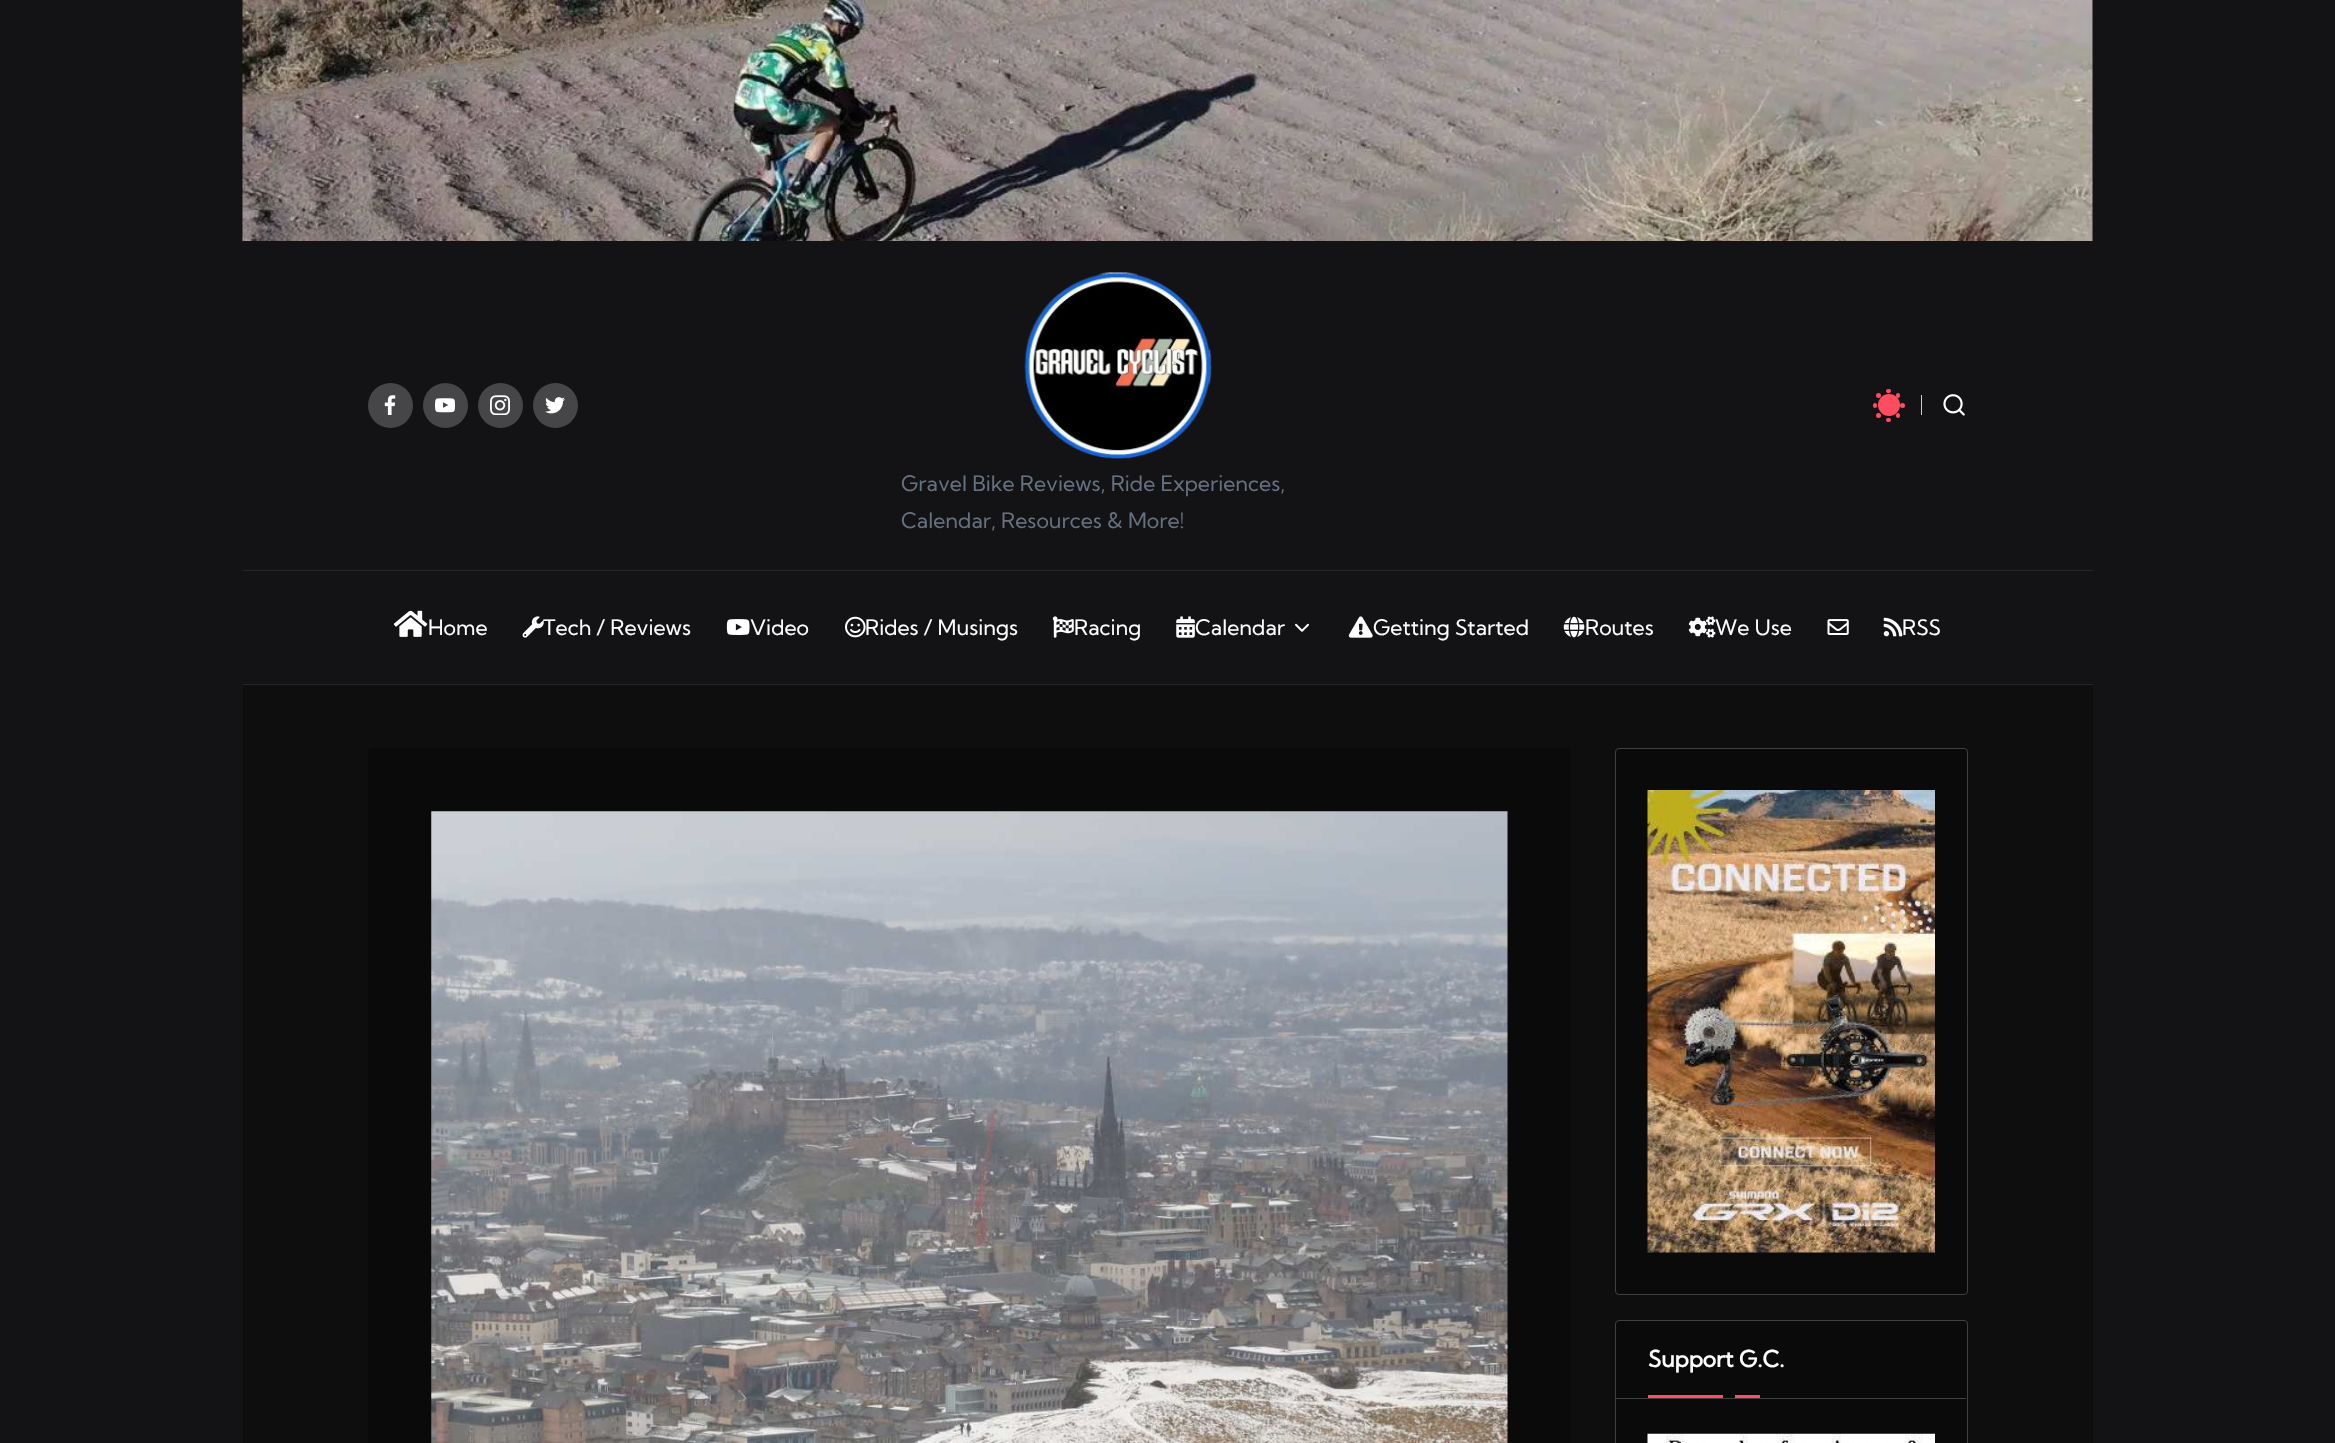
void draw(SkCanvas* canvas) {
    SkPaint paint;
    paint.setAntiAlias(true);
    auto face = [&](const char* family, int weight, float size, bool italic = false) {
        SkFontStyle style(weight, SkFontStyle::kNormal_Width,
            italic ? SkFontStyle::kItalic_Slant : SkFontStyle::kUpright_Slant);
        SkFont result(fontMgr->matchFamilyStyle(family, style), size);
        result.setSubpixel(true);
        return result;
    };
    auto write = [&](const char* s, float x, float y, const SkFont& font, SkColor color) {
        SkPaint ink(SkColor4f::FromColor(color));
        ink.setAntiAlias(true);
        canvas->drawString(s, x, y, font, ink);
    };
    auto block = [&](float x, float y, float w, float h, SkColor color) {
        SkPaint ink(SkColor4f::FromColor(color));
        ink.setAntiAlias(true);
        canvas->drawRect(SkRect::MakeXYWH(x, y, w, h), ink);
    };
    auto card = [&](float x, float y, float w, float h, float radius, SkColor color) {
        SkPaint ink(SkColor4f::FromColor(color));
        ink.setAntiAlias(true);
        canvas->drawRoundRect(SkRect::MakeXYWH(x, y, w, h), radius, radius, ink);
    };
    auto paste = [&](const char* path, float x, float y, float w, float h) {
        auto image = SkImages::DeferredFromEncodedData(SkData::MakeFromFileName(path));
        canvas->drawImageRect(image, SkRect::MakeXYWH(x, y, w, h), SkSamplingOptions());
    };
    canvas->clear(SkColorSetRGB(19, 19, 21));
    block(243, 0, 1850, 1443, SkColorSetRGB(14, 14, 14));
    paste("pic1.png", 242, 0, 1851, 242);
    block(243, 241, 1850, 329, SkColorSetRGB(19, 19, 21));
    paint.setColor(SkColorSetRGB(70, 70, 72));
    canvas->drawCircle(390.5f, 405.5f, 22.5f, paint);
    paste("pic2.png", 384, 395, 12, 20);
    canvas->drawCircle(445.5f, 405.5f, 22.5f, paint);
    paste("pic3.png", 435, 398, 20, 15);
    canvas->drawCircle(500.5f, 405.5f, 22.5f, paint);
    paste("pic4.png", 490, 395, 20, 20);
    canvas->drawCircle(555.5f, 405.5f, 22.5f, paint);
    paste("pic5.png", 545, 397, 20, 17);
    card(1896, 393, 4, 5, 2, SkColorSetRGB(255, 76, 96));
    paint.setColor(SkColorSetRGB(255, 76, 96));
    canvas->drawCircle(1878.5f, 415.5f, 2.5f, paint);
    card(1896, 413, 4, 5, 2, SkColorSetRGB(255, 76, 96));
    canvas->drawCircle(1878.5f, 395.5f, 2.5f, paint);
    card(1886, 418, 5, 4, 2, SkColorSetRGB(255, 76, 96));
    card(1886, 389, 5, 4, 2, SkColorSetRGB(255, 76, 96));
    canvas->drawCircle(1902.5f, 405.5f, 2.5f, paint);
    card(1873, 403, 4, 5, 2, SkColorSetRGB(255, 76, 96));
    canvas->drawCircle(1889, 405, 11, paint);
    block(1921, 395, 1, 20, SkColorSetRGB(204, 204, 204));
    paste("pic6.png", 1943, 394, 22, 22);
    paste("pic7.png", 1024, 272, 188, 187);
    auto kFont1 = face("Kumbh Sans", 400, 21.25f);
    write("Gravel Bike Reviews, Ride Experiences,", 901, 491, kFont1, SkColorSetRGB(102, 113, 127));
    write("Calendar, Resources & More!", 901, 528, kFont1, SkColorSetRGB(102, 113, 127));
    block(243, 571, 1850, 113, SkColorSetRGB(19, 19, 21));
    block(243, 570, 1850, 1, SkColorSetRGB(38, 38, 40));
    block(243, 684, 1850, 1, SkColorSetRGB(38, 38, 40));
    paste("pic8.png", 393, 610, 35, 27);
    write("Home", 428, 635, kFont1, SK_ColorWHITE);
    paste("pic9.png", 522, 616, 22, 22);
    write("Tech / Reviews", 543, 635, kFont1, SK_ColorWHITE);
    paste("pic10.png", 726, 619, 24, 16);
    write("Video", 750, 635, kFont1, SK_ColorWHITE);
    paste("pic11.png", 845, 616, 21, 22);
    write("Rides / Musings", 865, 635, kFont1, SK_ColorWHITE);
    paste("pic12.png", 1052, 616, 22, 22);
    write("Racing", 1074, 635, kFont1, SK_ColorWHITE);
    paste("pic13.png", 1176, 616, 19, 22);
    write("Calendar", 1195, 635, kFont1, SK_ColorWHITE);
    paste("pic14.png", 1295, 623, 14, 9);
    paste("pic15.png", 1348, 616, 25, 22);
    write("Getting Started", 1373, 635, kFont1, SK_ColorWHITE);
    paste("pic16.png", 1563, 616, 22, 22);
    write("Routes", 1585, 635, kFont1, SK_ColorWHITE);
    paste("pic17.png", 1688, 616, 28, 22);
    write("We Use", 1715, 635, kFont1, SK_ColorWHITE);
    paste("pic18.png", 1827, 619, 22, 16);
    paste("pic19.png", 1883, 617, 20, 20);
    write("RSS", 1902, 635, kFont1, SK_ColorWHITE);
    card(368, 748, 1203, 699, 4, SkColorSetRGB(10, 10, 10));
    paste("pic20.png", 431, 811, 1077, 632);
    paint.setColor(SkColorSetRGB(10, 10, 10));
    canvas->drawRoundRect(SkRect::MakeXYWH(1615.5f, 748.5f, 352, 546), 3.5f, 3.5f, paint);
    paint.setStyle(SkPaint::kStroke_Style);
    paint.setStrokeWidth(1);
    paint.setColor(SkColorSetRGB(64, 64, 64));
    canvas->drawRoundRect(SkRect::MakeXYWH(1615.5f, 748.5f, 352, 546), 3.5f, 3.5f, paint);
    paste("pic21.png", 1647, 790, 288, 463);
    paint.setStyle(SkPaint::kFill_Style);
    paint.setColor(SkColorSetRGB(10, 10, 10));
    canvas->drawRoundRect(SkRect::MakeXYWH(1615.5f, 1320.5f, 352, 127), 3.5f, 3.5f, paint);
    paint.setStyle(SkPaint::kStroke_Style);
    paint.setColor(SkColorSetRGB(64, 64, 64));
    canvas->drawRoundRect(SkRect::MakeXYWH(1615.5f, 1320.5f, 352, 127), 3.5f, 3.5f, paint);
    block(1616, 1398, 350, 1, SkColorSetRGB(64, 64, 64));
    auto kFont2 = face("Kumbh Sans", 700, 22.5f);
    write("Support G.C.", 1648, 1367, kFont2, SK_ColorWHITE);
    block(1648, 1395, 75, 3, SkColorSetRGB(255, 76, 96));
    block(1735, 1395, 25, 3, SkColorSetRGB(255, 76, 96));
    paste("pic22.png", 1647, 1433, 288, 10);
}
